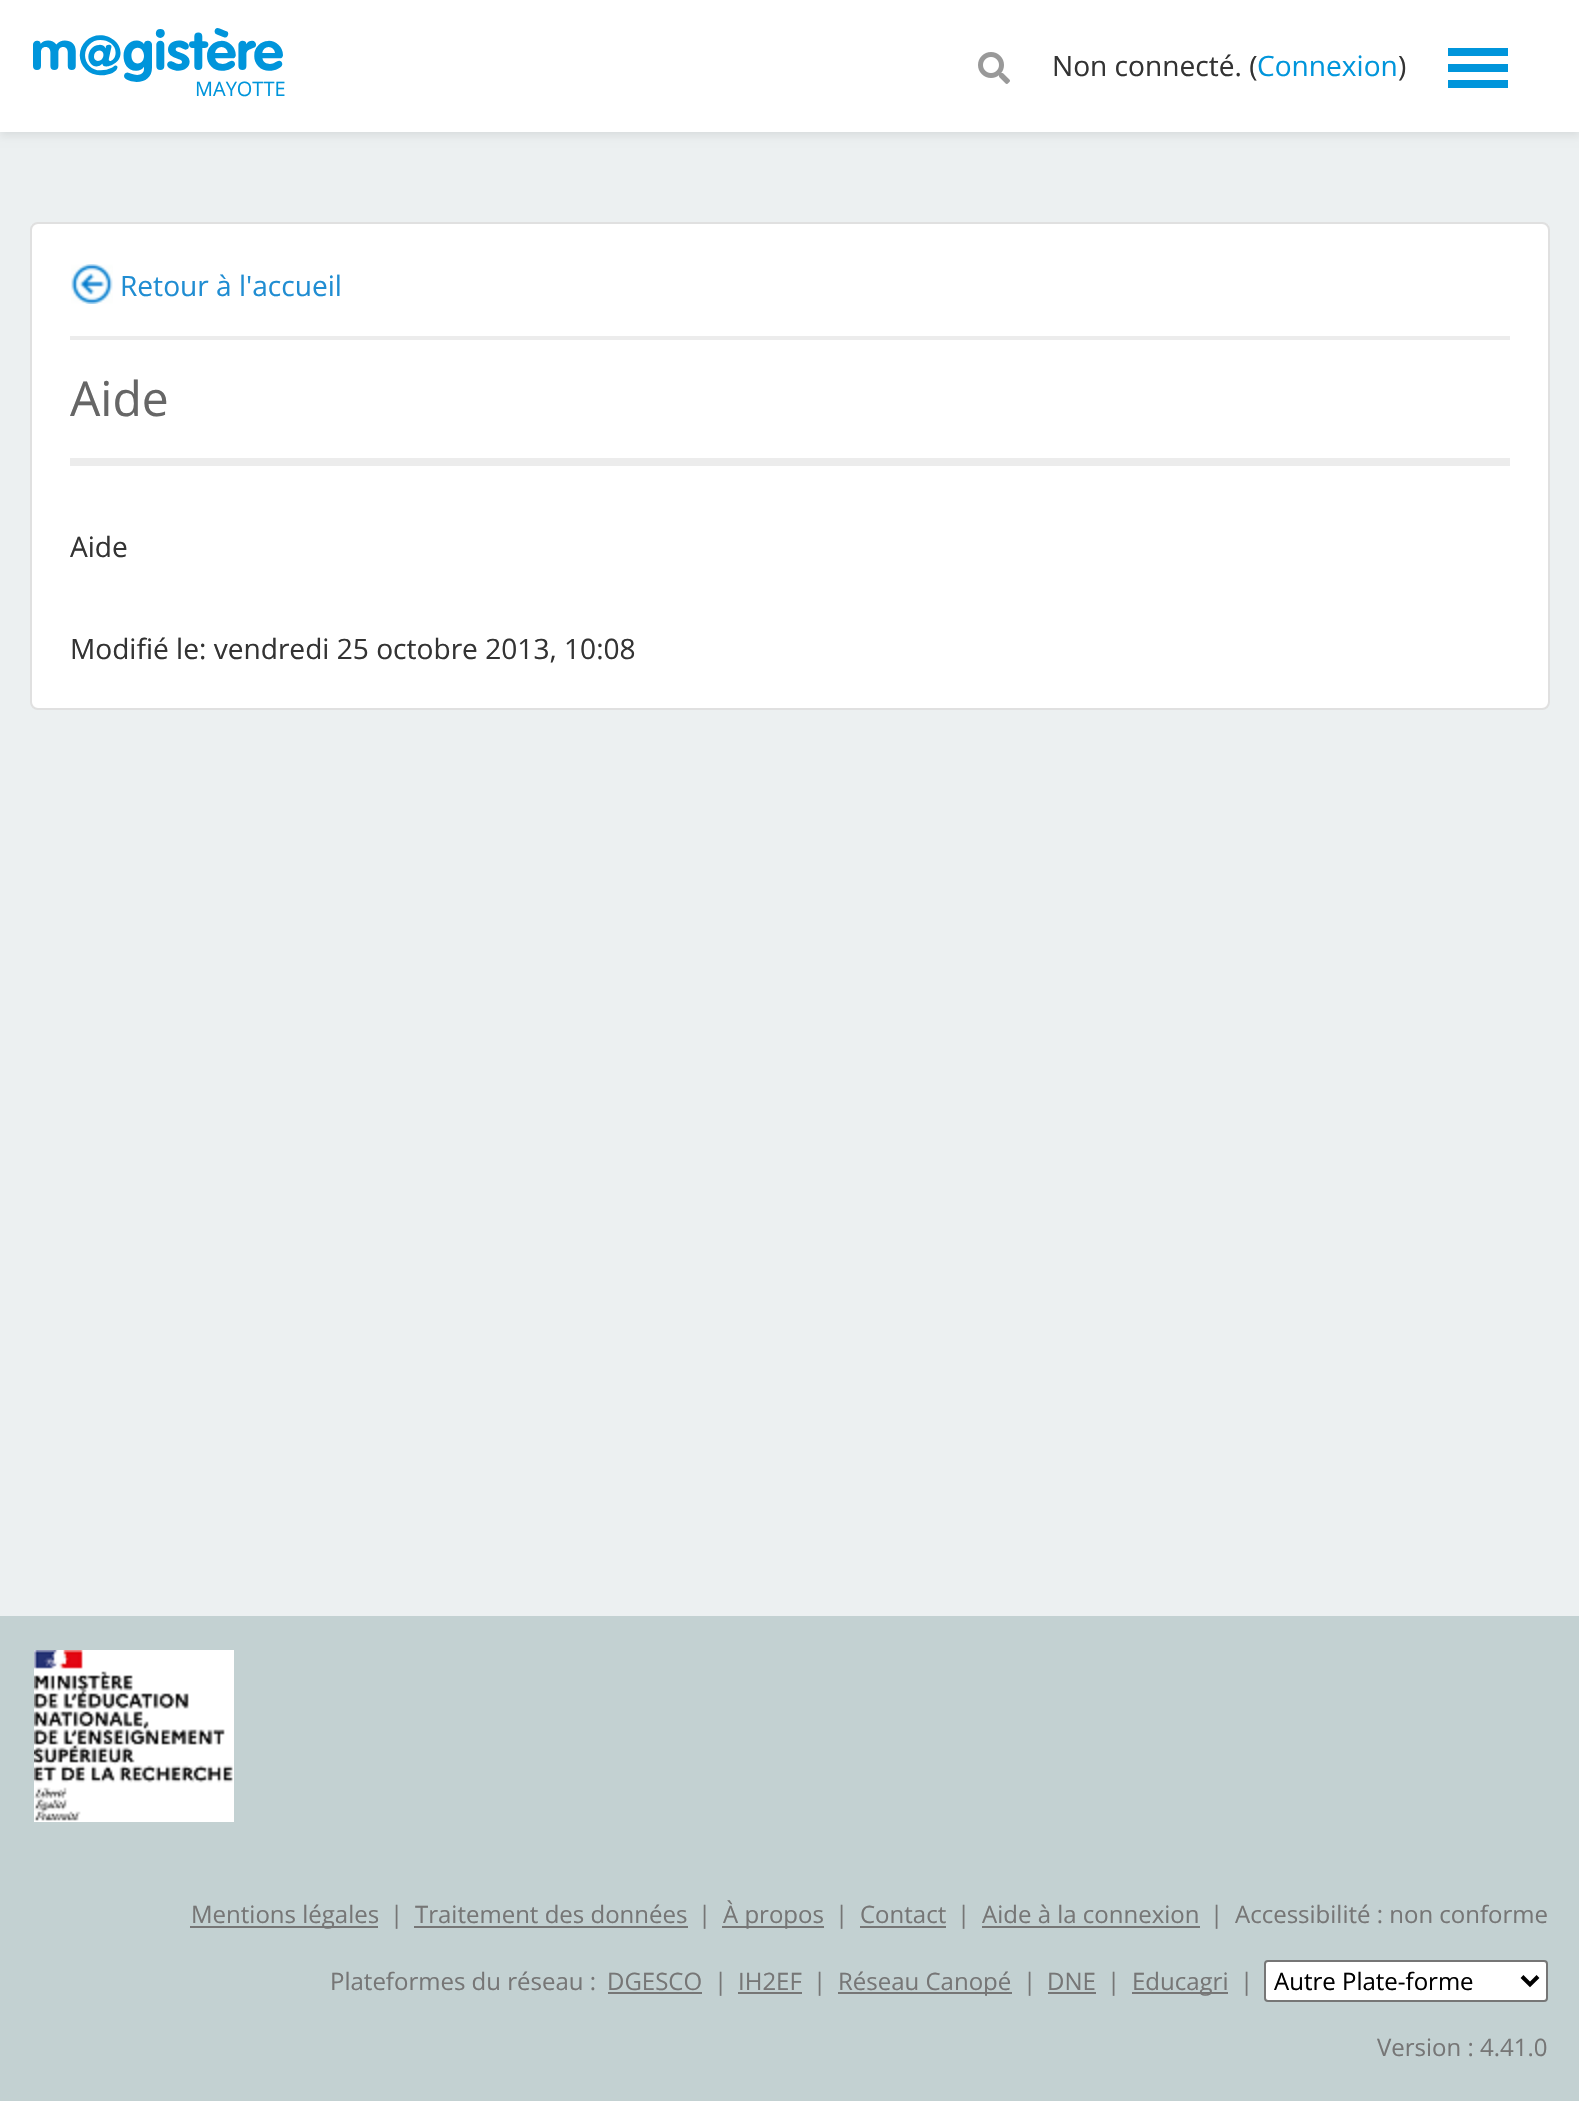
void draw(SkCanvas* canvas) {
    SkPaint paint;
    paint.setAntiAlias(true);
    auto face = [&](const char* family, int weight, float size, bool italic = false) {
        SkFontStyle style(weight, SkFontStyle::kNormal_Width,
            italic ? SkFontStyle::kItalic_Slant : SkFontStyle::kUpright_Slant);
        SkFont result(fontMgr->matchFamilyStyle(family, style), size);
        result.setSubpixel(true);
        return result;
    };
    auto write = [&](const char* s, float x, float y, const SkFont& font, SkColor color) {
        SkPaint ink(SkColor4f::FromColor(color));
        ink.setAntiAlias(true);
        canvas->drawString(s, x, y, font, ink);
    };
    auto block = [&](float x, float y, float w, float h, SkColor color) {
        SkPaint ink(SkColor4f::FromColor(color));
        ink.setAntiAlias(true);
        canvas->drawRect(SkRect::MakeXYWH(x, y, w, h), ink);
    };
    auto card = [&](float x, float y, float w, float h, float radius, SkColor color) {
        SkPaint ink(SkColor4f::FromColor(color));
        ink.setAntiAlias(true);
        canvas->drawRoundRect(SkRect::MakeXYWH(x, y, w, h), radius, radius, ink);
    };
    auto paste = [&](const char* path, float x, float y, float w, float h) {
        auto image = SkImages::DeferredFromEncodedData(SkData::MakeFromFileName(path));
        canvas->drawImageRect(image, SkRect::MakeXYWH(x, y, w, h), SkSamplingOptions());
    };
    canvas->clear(SkColorSetRGB(236, 240, 241));
    paint.setColor(SkColorSetARGB(20, 0, 0, 0));
    paint.setMaskFilter(SkMaskFilter::MakeBlur(kNormal_SkBlurStyle, 4));
    canvas->drawRect(SkRect::MakeXYWH(0, 4, 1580, 132), paint);
    paint.setMaskFilter(nullptr);
    block(0, 0, 1579, 132, SK_ColorWHITE);
    paste("pic1.png", 978, 52, 32, 32);
    auto kFont1 = face("Open Sans", 400, 28.1f);
    write("Non connecté. (", 1052, 76, kFont1, SkColorSetRGB(51, 51, 51));
    write("Connexion", 1257, 76, kFont1, SkColorSetRGB(0, 149, 219));
    write(")", 1398, 76, kFont1, SkColorSetRGB(51, 51, 51));
    block(1448, 48, 60, 8, SkColorSetRGB(0, 149, 219));
    block(1448, 64, 60, 8, SkColorSetRGB(0, 149, 219));
    block(1448, 80, 60, 8, SkColorSetRGB(0, 149, 219));
    paste("pic2.png", 33, 28, 250, 54);
    auto kFont2 = face("Open Sans", 400, 20);
    write("MAYOTTE", 195, 96, kFont2, SkColorSetRGB(0, 149, 219));
    card(30, 222, 1520, 488, 8, SK_ColorWHITE);
    paint.setStyle(SkPaint::kStroke_Style);
    paint.setStrokeWidth(2);
    paint.setColor(SkColorSetARGB(31, 0, 0, 0));
    canvas->drawRoundRect(SkRect::MakeXYWH(31, 223, 1518, 486), 7, 7, paint);
    paste("pic3.png", 71, 264, 42, 40);
    write("Retour à l'accueil", 120, 296, kFont1, SkColorSetRGB(32, 141, 210));
    block(70, 336, 1440, 4, SkColorSetRGB(236, 236, 236));
    auto kFont3 = face("Open Sans", 400, 48);
    write("Aide", 70, 416, kFont3, SkColorSetRGB(102, 102, 102));
    block(70, 458, 1440, 8, SkColorSetRGB(236, 236, 236));
    write("Aide", 70, 557, kFont1, SkColorSetRGB(51, 51, 51));
    write("Modifié le: vendredi 25 octobre 2013, 10:08", 70, 659, kFont1, SkColorSetRGB(51, 51, 51));
    block(0, 1616, 1579, 485, SkColorSetRGB(195, 209, 210));
    paste("pic4.png", 34, 1650, 200, 172);
    block(190, 1926, 188, 2, SkColorSetRGB(118, 118, 118));
    auto kFont4 = face("Open Sans", 400, 24);
    write("Mentions légales", 191, 1923, kFont4, SkColorSetRGB(118, 118, 118));
    write("|", 390, 1923, kFont4, SkColorSetRGB(118, 118, 118));
    write("Traitement des données", 415, 1923, kFont4, SkColorSetRGB(118, 118, 118));
    block(414, 1926, 274, 2, SkColorSetRGB(118, 118, 118));
    write("|", 698, 1923, kFont4, SkColorSetRGB(118, 118, 118));
    block(722, 1926, 102, 2, SkColorSetRGB(118, 118, 118));
    write("À propos", 723, 1923, kFont4, SkColorSetRGB(118, 118, 118));
    write("|", 835, 1923, kFont4, SkColorSetRGB(118, 118, 118));
    write("Contact", 860, 1923, kFont4, SkColorSetRGB(118, 118, 118));
    block(860, 1926, 86, 2, SkColorSetRGB(118, 118, 118));
    write("|", 957, 1923, kFont4, SkColorSetRGB(118, 118, 118));
    write("Aide à la connexion", 982, 1923, kFont4, SkColorSetRGB(118, 118, 118));
    block(982, 1926, 218, 2, SkColorSetRGB(118, 118, 118));
    write("|", 1210, 1923, kFont4, SkColorSetRGB(118, 118, 118));
    write("Accessibilité : non conforme", 1235, 1923, kFont4, SkColorSetRGB(118, 118, 118));
    write("Plateformes du réseau :", 330, 1990, kFont4, SkColorSetRGB(118, 118, 118));
    write("DGESCO", 607, 1990, kFont4, SkColorSetRGB(118, 118, 118));
    block(608, 1992, 94, 2, SkColorSetRGB(118, 118, 118));
    write("|", 714, 1990, kFont4, SkColorSetRGB(118, 118, 118));
    write("IH2EF", 738, 1990, kFont4, SkColorSetRGB(118, 118, 118));
    block(738, 1992, 64, 2, SkColorSetRGB(118, 118, 118));
    write("|", 813, 1990, kFont4, SkColorSetRGB(118, 118, 118));
    block(838, 1992, 174, 2, SkColorSetRGB(118, 118, 118));
    write("Réseau Canopé", 838, 1990, kFont4, SkColorSetRGB(118, 118, 118));
    write("|", 1023, 1990, kFont4, SkColorSetRGB(118, 118, 118));
    write("DNE", 1047, 1990, kFont4, SkColorSetRGB(118, 118, 118));
    block(1048, 1992, 48, 2, SkColorSetRGB(118, 118, 118));
    write("|", 1107, 1990, kFont4, SkColorSetRGB(118, 118, 118));
    block(1132, 1992, 96, 2, SkColorSetRGB(118, 118, 118));
    write("Educagri", 1132, 1990, kFont4, SkColorSetRGB(118, 118, 118));
    write("|", 1240, 1990, kFont4, SkColorSetRGB(118, 118, 118));
    paint.setStyle(SkPaint::kFill_Style);
    paint.setColor(SK_ColorWHITE);
    canvas->drawRoundRect(SkRect::MakeXYWH(1265, 1961, 282, 40), 3, 3, paint);
    paint.setStyle(SkPaint::kStroke_Style);
    paint.setColor(SkColorSetRGB(118, 118, 118));
    canvas->drawRoundRect(SkRect::MakeXYWH(1265, 1961, 282, 40), 3, 3, paint);
    paint.setStrokeWidth(4);
    paint.setColor(SK_ColorBLACK);
    canvas->drawPath(SkPathBuilder().moveTo(1522, 1976.5f).lineTo(1530, 1984.5f).lineTo(1538, 1976.5f).detach(), paint);
    write("Autre Plate-forme", 1274, 1990, kFont4, SK_ColorBLACK);
    write("Version : 4.41.0", 1377, 2056, kFont4, SkColorSetRGB(118, 118, 118));
}
